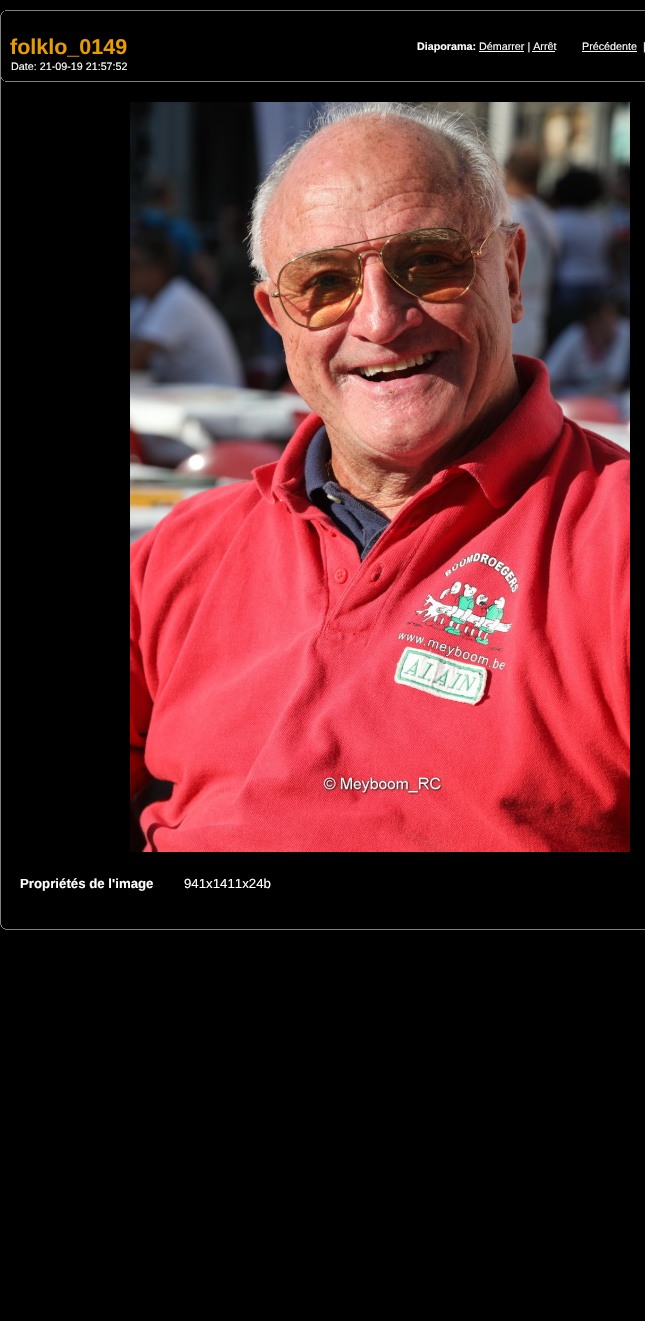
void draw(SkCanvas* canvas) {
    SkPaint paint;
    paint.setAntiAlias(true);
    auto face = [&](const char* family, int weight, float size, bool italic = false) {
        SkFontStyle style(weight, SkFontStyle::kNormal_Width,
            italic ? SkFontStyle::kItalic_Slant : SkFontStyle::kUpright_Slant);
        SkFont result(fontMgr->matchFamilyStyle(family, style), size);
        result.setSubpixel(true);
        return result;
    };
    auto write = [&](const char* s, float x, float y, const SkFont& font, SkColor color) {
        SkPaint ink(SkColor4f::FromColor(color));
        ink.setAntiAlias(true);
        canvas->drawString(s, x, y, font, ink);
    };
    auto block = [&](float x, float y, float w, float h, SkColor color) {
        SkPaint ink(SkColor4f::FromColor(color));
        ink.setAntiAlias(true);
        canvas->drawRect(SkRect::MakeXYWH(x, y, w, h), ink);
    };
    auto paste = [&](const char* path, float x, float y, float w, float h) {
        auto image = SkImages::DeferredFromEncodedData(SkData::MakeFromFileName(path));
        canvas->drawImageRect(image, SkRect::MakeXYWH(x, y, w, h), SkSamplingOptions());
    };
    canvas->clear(SK_ColorBLACK);
    block(5, 10, 640, 1, SkColorSetRGB(128, 128, 128));
    block(3, 11, 1, 1, SkColorSetRGB(128, 128, 128));
    block(2, 12, 1, 1, SkColorSetRGB(128, 128, 128));
    block(1, 13, 1, 2, SkColorSetRGB(128, 128, 128));
    auto kFont1 = face("Liberation Sans", 700, 21.5f);
    write("folklo_0149", 10, 54, kFont1, SkColorSetRGB(232, 156, 0));
    auto kFont2 = face("Liberation Sans", 400, 10.75f);
    write("Date: 21-09-19 21:57:52", 11, 70, kFont2, SK_ColorWHITE);
    auto kFont3 = face("Liberation Sans", 700, 10.75f);
    write("Diaporama:", 417, 50, kFont3, SK_ColorWHITE);
    block(479, 51, 45, 1, SK_ColorWHITE);
    write("Démarrer | Arrêt", 479, 50, kFont2, SK_ColorWHITE);
    block(532, 51, 23, 1, SK_ColorWHITE);
    write("Précédente", 582, 50, kFont2, SK_ColorWHITE);
    block(582, 51, 55, 1, SK_ColorWHITE);
    write("|", 643, 50, kFont2, SK_ColorWHITE);
    block(1, 77, 1, 2, SkColorSetRGB(128, 128, 128));
    block(2, 79, 1, 1, SkColorSetRGB(128, 128, 128));
    block(3, 80, 1, 1, SkColorSetRGB(128, 128, 128));
    block(5, 81, 640, 1, SkColorSetRGB(128, 128, 128));
    block(0, 15, 1, 910, SkColorSetRGB(128, 128, 128));
    paste("pic1.png", 130, 102, 500, 750);
    auto kFont4 = face("Liberation Sans", 700, 13.25f);
    write("Propriétés de l'image", 20, 888, kFont4, SK_ColorWHITE);
    auto kFont5 = face("Liberation Sans", 400, 13.25f);
    write("941x1411x24b", 184, 888, kFont5, SK_ColorWHITE);
    block(1, 925, 1, 2, SkColorSetRGB(128, 128, 128));
    block(2, 927, 1, 1, SkColorSetRGB(128, 128, 128));
    block(3, 928, 2, 1, SkColorSetRGB(128, 128, 128));
    block(5, 929, 640, 1, SkColorSetRGB(128, 128, 128));
}
